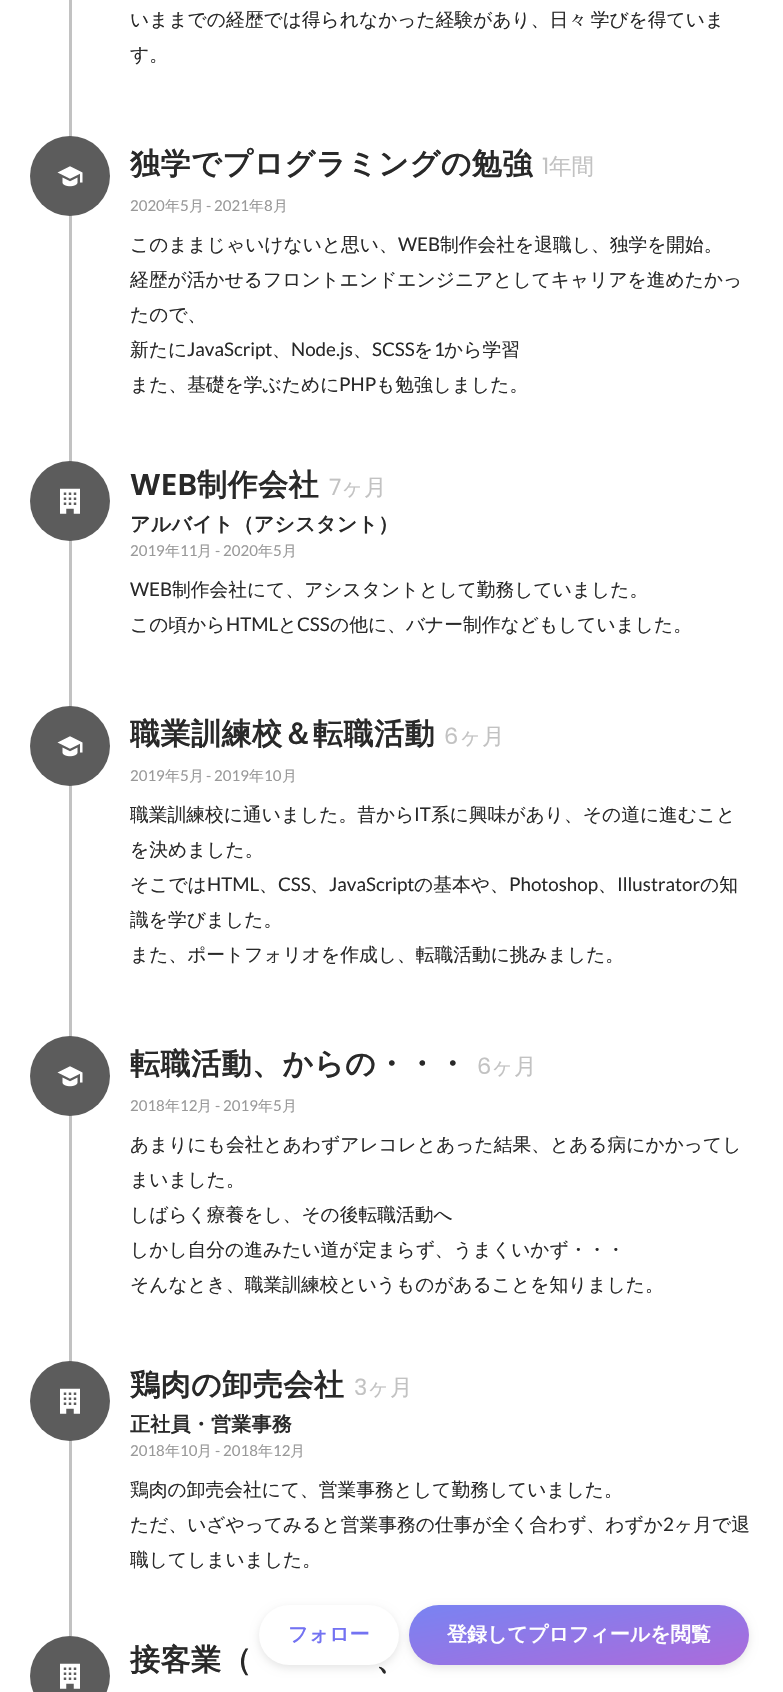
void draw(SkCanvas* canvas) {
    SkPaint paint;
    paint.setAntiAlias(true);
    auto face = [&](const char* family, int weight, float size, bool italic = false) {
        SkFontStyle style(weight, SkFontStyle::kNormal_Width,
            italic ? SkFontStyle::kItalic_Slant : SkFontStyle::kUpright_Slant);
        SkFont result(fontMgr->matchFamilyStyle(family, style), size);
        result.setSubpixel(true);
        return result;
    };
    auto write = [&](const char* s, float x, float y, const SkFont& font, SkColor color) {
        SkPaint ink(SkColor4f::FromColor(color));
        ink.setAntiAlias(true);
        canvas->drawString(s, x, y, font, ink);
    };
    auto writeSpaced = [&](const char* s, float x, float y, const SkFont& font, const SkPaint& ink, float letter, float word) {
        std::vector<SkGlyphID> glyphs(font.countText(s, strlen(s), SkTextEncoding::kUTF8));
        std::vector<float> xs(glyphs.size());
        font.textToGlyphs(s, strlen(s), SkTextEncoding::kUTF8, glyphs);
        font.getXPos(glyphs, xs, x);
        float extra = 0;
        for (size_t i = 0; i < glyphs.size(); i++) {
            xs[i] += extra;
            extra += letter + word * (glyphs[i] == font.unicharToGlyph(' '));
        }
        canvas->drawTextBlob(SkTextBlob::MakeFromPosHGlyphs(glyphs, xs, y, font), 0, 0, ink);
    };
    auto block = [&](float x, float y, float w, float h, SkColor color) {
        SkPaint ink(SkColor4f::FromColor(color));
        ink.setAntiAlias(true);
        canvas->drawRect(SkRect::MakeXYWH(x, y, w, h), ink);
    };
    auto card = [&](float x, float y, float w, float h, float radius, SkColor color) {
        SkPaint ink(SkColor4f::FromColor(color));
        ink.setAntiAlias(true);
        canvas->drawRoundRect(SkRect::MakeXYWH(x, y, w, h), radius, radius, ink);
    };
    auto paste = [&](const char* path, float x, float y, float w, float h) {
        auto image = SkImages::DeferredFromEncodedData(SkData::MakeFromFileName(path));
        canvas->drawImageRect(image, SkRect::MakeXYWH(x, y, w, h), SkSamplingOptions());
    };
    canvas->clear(SK_ColorWHITE);
    block(69, 0, 3, 1636, SkColorSetRGB(194, 194, 194));
    auto kFont1 = face("WenQuanYi Zen Hei", 500, 18.75f);
    paint.setColor(SkColorSetRGB(41, 41, 41));
    writeSpaced("いままでの経歴では得られなかった経験があり、日々 学びを得ていま", 130, 26, kFont1, paint, 0, -2);
    write("す。", 130, 61, kFont1, SkColorSetRGB(41, 41, 41));
    paint.setColor(SkColorSetRGB(92, 92, 92));
    canvas->drawCircle(70, 176, 40, paint);
    paste("pic1.png", 57, 166, 26, 21);
    auto kFont2 = face("WenQuanYi Zen Hei", 700, 30);
    paint.setColor(SkColorSetRGB(41, 41, 41));
    writeSpaced("独学でプログラミングの勉強", 130, 174, kFont2, paint, 0.5f, 0);
    auto kFont3 = face("Poppins", 400, 22.5f);
    write("1", 542, 174, kFont3, SkColorSetRGB(194, 194, 194));
    auto kFont4 = face("WenQuanYi Zen Hei", 500, 22.5f);
    write("年間", 549, 174, kFont4, SkColorSetRGB(194, 194, 194));
    auto kFont5 = face("Lato", 400, 15);
    write("2020", 130, 211, kFont5, SkColorSetRGB(153, 153, 153));
    auto kFont6 = face("WenQuanYi Zen Hei", 500, 15);
    write("年", 165, 211, kFont6, SkColorSetRGB(153, 153, 153));
    write("5", 180, 211, kFont5, SkColorSetRGB(153, 153, 153));
    write("月", 189, 211, kFont6, SkColorSetRGB(153, 153, 153));
    write("- 2021", 206, 211, kFont5, SkColorSetRGB(153, 153, 153));
    write("年", 249, 211, kFont6, SkColorSetRGB(153, 153, 153));
    write("8", 264, 211, kFont5, SkColorSetRGB(153, 153, 153));
    write("月", 273, 211, kFont6, SkColorSetRGB(153, 153, 153));
    write("このままじゃいけないと思い、", 130, 251, kFont1, SkColorSetRGB(41, 41, 41));
    auto kFont7 = face("Lato", 400, 18.75f);
    write("WEB", 398, 251, kFont7, SkColorSetRGB(41, 41, 41));
    write("制作会社を退職し、独学を開始。", 440, 251, kFont1, SkColorSetRGB(41, 41, 41));
    write("経歴が活かせるフロントエンドエンジニアとしてキャリアを進めたかっ", 130, 286, kFont1, SkColorSetRGB(41, 41, 41));
    write("たので、", 130, 321, kFont1, SkColorSetRGB(41, 41, 41));
    write("新たに", 130, 356, kFont1, SkColorSetRGB(41, 41, 41));
    write("JavaScript", 187, 356, kFont7, SkColorSetRGB(41, 41, 41));
    write("Node.js", 291, 356, kFont7, SkColorSetRGB(41, 41, 41));
    write("SCSS", 372, 356, kFont7, SkColorSetRGB(41, 41, 41));
    write("を", 414, 356, kFont1, SkColorSetRGB(41, 41, 41));
    write("1", 434, 356, kFont7, SkColorSetRGB(41, 41, 41));
    write("から学習", 444, 356, kFont1, SkColorSetRGB(41, 41, 41));
    write("、", 272, 356, kFont1, SkColorSetRGB(41, 41, 41));
    write("、", 353, 356, kFont1, SkColorSetRGB(41, 41, 41));
    write("また、基礎を学ぶために", 130, 391, kFont1, SkColorSetRGB(41, 41, 41));
    write("PHP", 339, 391, kFont7, SkColorSetRGB(41, 41, 41));
    write("も勉強しました。", 376, 391, kFont1, SkColorSetRGB(41, 41, 41));
    paint.setColor(SkColorSetRGB(92, 92, 92));
    canvas->drawCircle(70, 501, 40, paint);
    paste("pic2.png", 60, 488, 20, 26);
    auto kFont8 = face("Poppins", 600, 30);
    paint.setColor(SkColorSetRGB(41, 41, 41));
    writeSpaced("WEB", 130, 495, kFont8, paint, 0.5f, 0);
    writeSpaced("制作会社", 197, 495, kFont2, paint, 0.5f, 0);
    write("7", 329, 495, kFont3, SkColorSetRGB(194, 194, 194));
    write("ヶ月", 341, 495, kFont4, SkColorSetRGB(194, 194, 194));
    auto kFont9 = face("WenQuanYi Zen Hei", 700, 20);
    writeSpaced("アルバイト（アシスタント）", 130, 531, kFont9, paint, 0.25f, 0);
    write("2019", 130, 556, kFont5, SkColorSetRGB(153, 153, 153));
    write("年", 165, 556, kFont6, SkColorSetRGB(153, 153, 153));
    write("11", 180, 556, kFont5, SkColorSetRGB(153, 153, 153));
    write("月", 197, 556, kFont6, SkColorSetRGB(153, 153, 153));
    write("- 2020", 215, 556, kFont5, SkColorSetRGB(153, 153, 153));
    write("年", 258, 556, kFont6, SkColorSetRGB(153, 153, 153));
    write("5", 273, 556, kFont5, SkColorSetRGB(153, 153, 153));
    write("月", 282, 556, kFont6, SkColorSetRGB(153, 153, 153));
    write("WEB", 130, 596, kFont7, SkColorSetRGB(41, 41, 41));
    write("制作会社にて、アシスタントとして勤務していました。", 172, 596, kFont1, SkColorSetRGB(41, 41, 41));
    write("この頃から", 130, 631, kFont1, SkColorSetRGB(41, 41, 41));
    write("HTML", 226, 631, kFont7, SkColorSetRGB(41, 41, 41));
    write("と", 278, 631, kFont1, SkColorSetRGB(41, 41, 41));
    write("CSS", 297, 631, kFont7, SkColorSetRGB(41, 41, 41));
    write("の他に、バナー制作などもしていました。", 330, 631, kFont1, SkColorSetRGB(41, 41, 41));
    paint.setColor(SkColorSetRGB(92, 92, 92));
    canvas->drawCircle(70, 746, 40, paint);
    paste("pic1.png", 57, 736, 26, 21);
    paint.setColor(SkColorSetRGB(41, 41, 41));
    writeSpaced("職業訓練校＆転職活動", 130, 744, kFont2, paint, 0.5f, 0);
    write("6", 444, 744, kFont3, SkColorSetRGB(194, 194, 194));
    write("ヶ月", 459, 744, kFont4, SkColorSetRGB(194, 194, 194));
    write("2019", 130, 781, kFont5, SkColorSetRGB(153, 153, 153));
    write("年", 165, 781, kFont6, SkColorSetRGB(153, 153, 153));
    write("5", 180, 781, kFont5, SkColorSetRGB(153, 153, 153));
    write("月", 189, 781, kFont6, SkColorSetRGB(153, 153, 153));
    write("- 2019", 206, 781, kFont5, SkColorSetRGB(153, 153, 153));
    write("年", 249, 781, kFont6, SkColorSetRGB(153, 153, 153));
    write("10", 264, 781, kFont5, SkColorSetRGB(153, 153, 153));
    write("月", 282, 781, kFont6, SkColorSetRGB(153, 153, 153));
    write("職業訓練校に通いました。昔から", 130, 821, kFont1, SkColorSetRGB(41, 41, 41));
    write("IT", 414, 821, kFont7, SkColorSetRGB(41, 41, 41));
    write("系に興味があり、その道に進むこと", 431, 821, kFont1, SkColorSetRGB(41, 41, 41));
    write("を決めました。", 130, 856, kFont1, SkColorSetRGB(41, 41, 41));
    write("そこでは", 130, 891, kFont1, SkColorSetRGB(41, 41, 41));
    write("HTML", 207, 891, kFont7, SkColorSetRGB(41, 41, 41));
    write("、", 259, 891, kFont1, SkColorSetRGB(41, 41, 41));
    write("CSS", 278, 891, kFont7, SkColorSetRGB(41, 41, 41));
    write("、", 310, 891, kFont1, SkColorSetRGB(41, 41, 41));
    write("JavaScript", 329, 891, kFont7, SkColorSetRGB(41, 41, 41));
    write("の基本や、", 414, 891, kFont1, SkColorSetRGB(41, 41, 41));
    write("Photoshop", 509, 891, kFont7, SkColorSetRGB(41, 41, 41));
    write("、", 598, 891, kFont1, SkColorSetRGB(41, 41, 41));
    write("Illustrator", 617, 891, kFont7, SkColorSetRGB(41, 41, 41));
    write("の知", 700, 891, kFont1, SkColorSetRGB(41, 41, 41));
    write("識を学びました。", 130, 926, kFont1, SkColorSetRGB(41, 41, 41));
    write("また、ポートフォリオを作成し、転職活動に挑みました。", 130, 961, kFont1, SkColorSetRGB(41, 41, 41));
    paint.setColor(SkColorSetRGB(92, 92, 92));
    canvas->drawCircle(70, 1076, 40, paint);
    paste("pic1.png", 57, 1066, 26, 21);
    paint.setColor(SkColorSetRGB(41, 41, 41));
    writeSpaced("転職活動、からの・・・", 130, 1074, kFont2, paint, 0.5f, 0);
    write("6", 477, 1074, kFont3, SkColorSetRGB(194, 194, 194));
    write("ヶ月", 491, 1074, kFont4, SkColorSetRGB(194, 194, 194));
    write("2018", 130, 1111, kFont5, SkColorSetRGB(153, 153, 153));
    write("年", 165, 1111, kFont6, SkColorSetRGB(153, 153, 153));
    write("12", 180, 1111, kFont5, SkColorSetRGB(153, 153, 153));
    write("月", 197, 1111, kFont6, SkColorSetRGB(153, 153, 153));
    write("- 2019", 215, 1111, kFont5, SkColorSetRGB(153, 153, 153));
    write("年", 258, 1111, kFont6, SkColorSetRGB(153, 153, 153));
    write("5", 273, 1111, kFont5, SkColorSetRGB(153, 153, 153));
    write("月", 282, 1111, kFont6, SkColorSetRGB(153, 153, 153));
    write("あまりにも会社とあわずアレコレとあった結果、とある病にかかってし", 130, 1151, kFont1, SkColorSetRGB(41, 41, 41));
    write("まいました。", 130, 1186, kFont1, SkColorSetRGB(41, 41, 41));
    write("しばらく療養をし、その後転職活動へ", 130, 1221, kFont1, SkColorSetRGB(41, 41, 41));
    write("しかし自分の進みたい道が定まらず、うまくいかず・・・", 130, 1256, kFont1, SkColorSetRGB(41, 41, 41));
    write("そんなとき、職業訓練校というものがあることを知りました。", 130, 1291, kFont1, SkColorSetRGB(41, 41, 41));
    paint.setColor(SkColorSetRGB(92, 92, 92));
    canvas->drawCircle(70, 1401, 40, paint);
    paste("pic2.png", 60, 1388, 20, 26);
    paint.setColor(SkColorSetRGB(41, 41, 41));
    writeSpaced("鶏肉の卸売会社", 130, 1395, kFont2, paint, 0.5f, 0);
    write("3", 354, 1395, kFont3, SkColorSetRGB(194, 194, 194));
    write("ヶ月", 367, 1395, kFont4, SkColorSetRGB(194, 194, 194));
    writeSpaced("正社員・営業事務", 130, 1431, kFont9, paint, 0.25f, 0);
    write("2018", 130, 1456, kFont5, SkColorSetRGB(153, 153, 153));
    write("年", 165, 1456, kFont6, SkColorSetRGB(153, 153, 153));
    write("10", 180, 1456, kFont5, SkColorSetRGB(153, 153, 153));
    write("月", 197, 1456, kFont6, SkColorSetRGB(153, 153, 153));
    write("- 2018", 215, 1456, kFont5, SkColorSetRGB(153, 153, 153));
    write("年", 258, 1456, kFont6, SkColorSetRGB(153, 153, 153));
    write("12", 273, 1456, kFont5, SkColorSetRGB(153, 153, 153));
    write("月", 290, 1456, kFont6, SkColorSetRGB(153, 153, 153));
    write("鶏肉の卸売会社にて、営業事務として勤務していました。", 130, 1496, kFont1, SkColorSetRGB(41, 41, 41));
    write("ただ、いざやってみると営業事務の仕事が全く合わず、わずか", 130, 1531, kFont1, SkColorSetRGB(41, 41, 41));
    write("2", 663, 1531, kFont7, SkColorSetRGB(41, 41, 41));
    write("ヶ月で退", 674, 1531, kFont1, SkColorSetRGB(41, 41, 41));
    write("職してしまいました。", 130, 1566, kFont1, SkColorSetRGB(41, 41, 41));
    paint.setColor(SkColorSetRGB(92, 92, 92));
    canvas->drawCircle(70, 1676, 40, paint);
    paste("pic2.png", 60, 1663, 20, 26);
    paint.setColor(SkColorSetRGB(41, 41, 41));
    writeSpaced("接客業（", 130, 1670, kFont2, paint, 0.5f, 0);
    writeSpaced("、", 376, 1670, kFont2, paint, 0.5f, 0);
    paint.setColor(SkColorSetARGB(26, 0, 0, 0));
    paint.setMaskFilter(SkMaskFilter::MakeBlur(kNormal_SkBlurStyle, 4));
    canvas->drawRoundRect(SkRect::MakeXYWH(259, 1608, 140, 60), 30, 30, paint);
    paint.setMaskFilter(nullptr);
    card(259, 1605, 140, 60, 30, SK_ColorWHITE);
    write("フォロー", 288, 1641, kFont9, SkColorSetRGB(115, 114, 242));
    paint.setMaskFilter(SkMaskFilter::MakeBlur(kNormal_SkBlurStyle, 4));
    canvas->drawRoundRect(SkRect::MakeXYWH(409, 1608, 340, 60), 30, 30, paint);
    paint.setMaskFilter(nullptr);
    {
        const SkColor colors[] = {SkColorSetRGB(121, 131, 242), SkColorSetRGB(171, 107, 219)};
        const float stops[] = {0, 1};
        const SkPoint ends[] = {{568, 1577}, {589, 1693}};
        paint.setShader(SkGradientShader::MakeLinear(ends, colors, stops, 2, SkTileMode::kClamp));
        paint.setAlpha(255);
    }
    canvas->drawRoundRect(SkRect::MakeXYWH(409, 1605, 340, 60), 30, 30, paint);
    write("登録してプロフィールを閲覧", 447, 1641, kFont9, SK_ColorWHITE);
}
